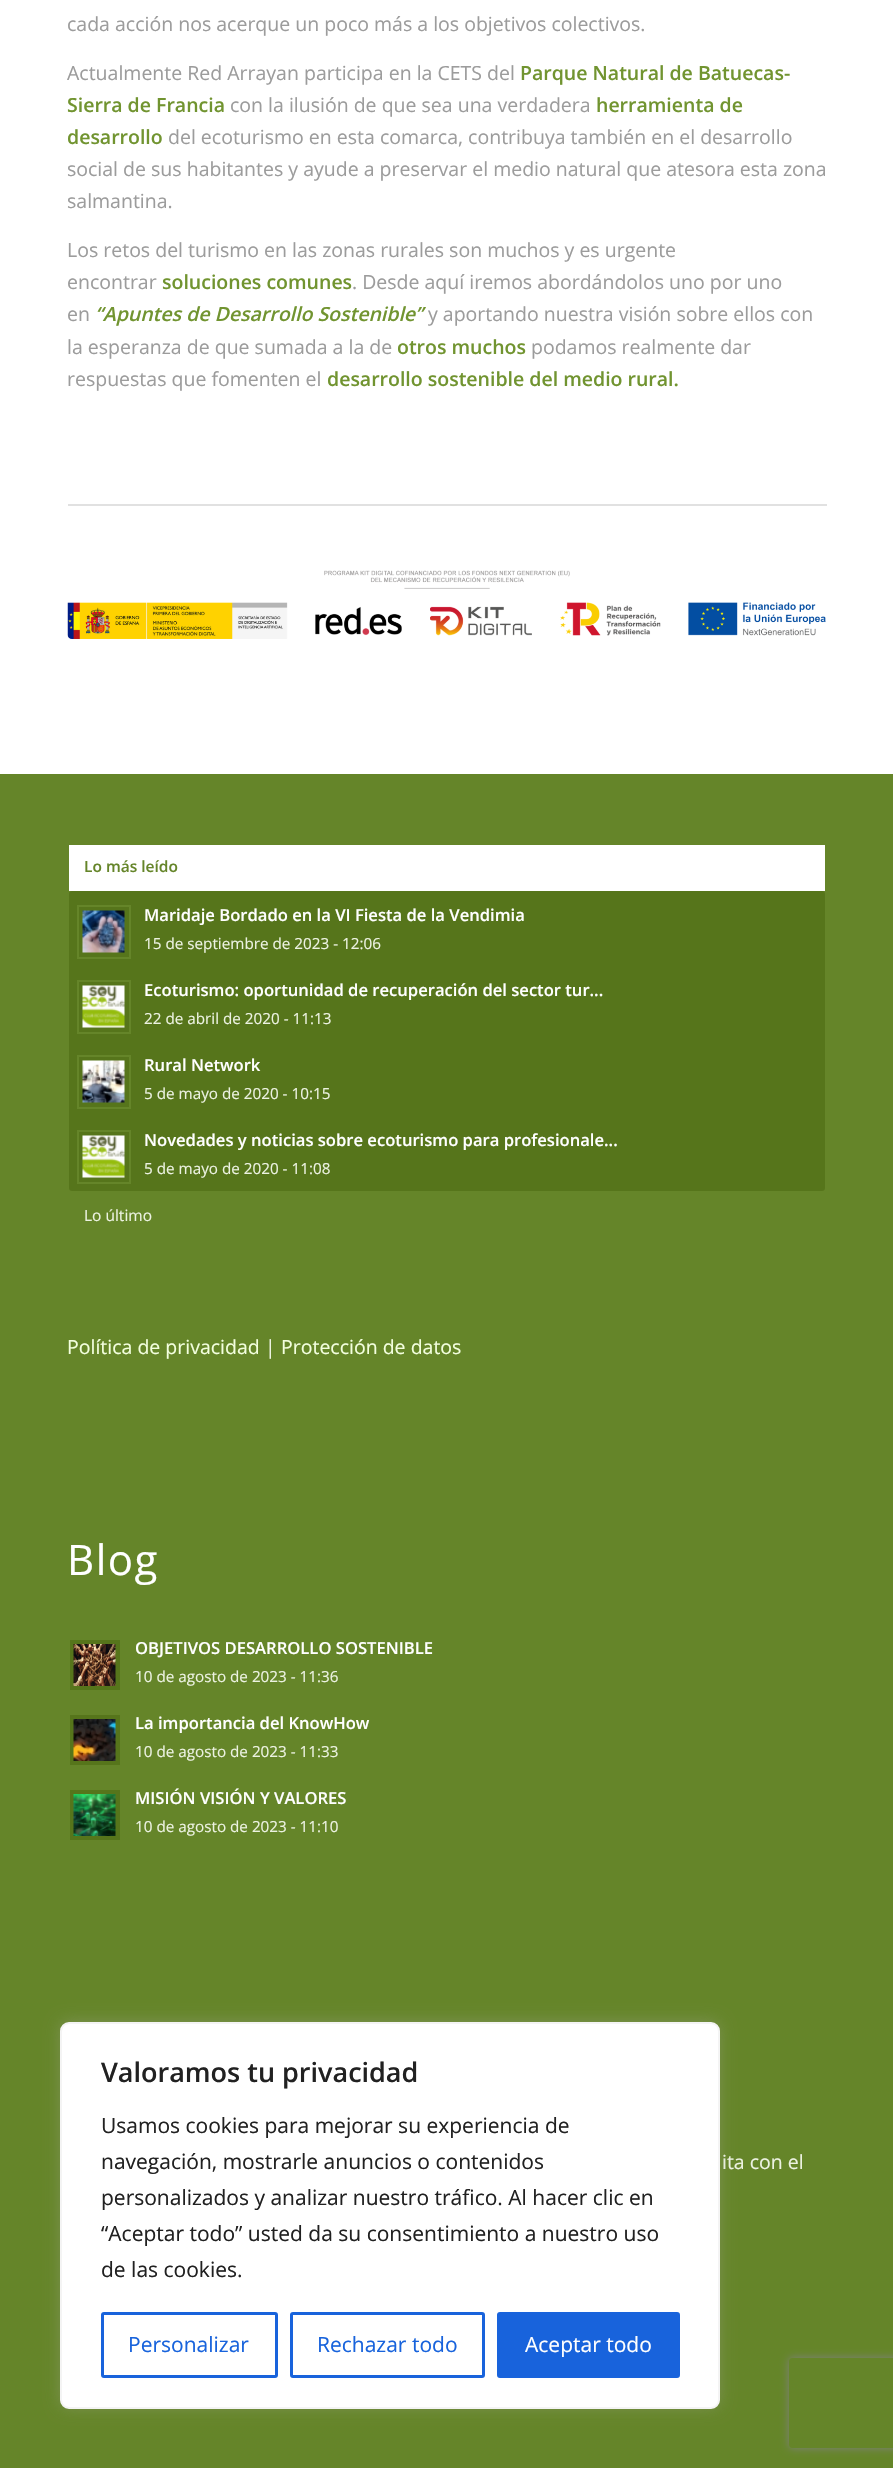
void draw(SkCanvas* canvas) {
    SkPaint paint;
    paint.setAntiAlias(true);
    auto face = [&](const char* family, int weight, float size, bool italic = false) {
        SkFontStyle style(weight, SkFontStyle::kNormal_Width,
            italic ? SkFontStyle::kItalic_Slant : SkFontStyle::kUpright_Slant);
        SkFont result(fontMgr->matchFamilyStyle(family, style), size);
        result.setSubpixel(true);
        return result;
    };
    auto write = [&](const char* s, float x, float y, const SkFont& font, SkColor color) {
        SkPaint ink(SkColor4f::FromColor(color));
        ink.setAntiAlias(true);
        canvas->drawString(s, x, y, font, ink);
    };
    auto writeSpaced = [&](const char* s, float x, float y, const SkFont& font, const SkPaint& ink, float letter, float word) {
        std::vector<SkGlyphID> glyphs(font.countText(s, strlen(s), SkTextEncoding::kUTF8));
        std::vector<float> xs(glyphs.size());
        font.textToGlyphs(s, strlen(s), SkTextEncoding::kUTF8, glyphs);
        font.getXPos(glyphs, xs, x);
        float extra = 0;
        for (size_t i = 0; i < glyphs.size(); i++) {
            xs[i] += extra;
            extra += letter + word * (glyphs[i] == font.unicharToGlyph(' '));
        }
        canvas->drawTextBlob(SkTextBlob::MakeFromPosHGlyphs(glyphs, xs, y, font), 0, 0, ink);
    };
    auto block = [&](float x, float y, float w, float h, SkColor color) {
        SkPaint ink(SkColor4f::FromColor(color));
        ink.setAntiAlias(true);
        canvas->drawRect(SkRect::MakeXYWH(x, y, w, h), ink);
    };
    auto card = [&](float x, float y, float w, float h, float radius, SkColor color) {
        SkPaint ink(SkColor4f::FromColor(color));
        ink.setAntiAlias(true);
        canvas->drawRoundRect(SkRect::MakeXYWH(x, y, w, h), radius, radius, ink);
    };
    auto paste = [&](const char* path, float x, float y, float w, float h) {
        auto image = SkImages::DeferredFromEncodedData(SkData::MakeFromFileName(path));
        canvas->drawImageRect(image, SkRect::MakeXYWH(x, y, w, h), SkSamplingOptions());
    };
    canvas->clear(SK_ColorWHITE);
    auto kFont1 = face("Open Sans", 400, 19.5f);
    write("cada acción nos acerque un poco más a los objetivos colectivos.", 67, 31, kFont1, SkColorSetRGB(156, 156, 156));
    write("Actualmente Red Arrayan participa en la CETS del", 67, 80, kFont1, SkColorSetRGB(156, 156, 156));
    auto kFont2 = face("Open Sans", 600, 19.5f);
    write("Parque Natural de Batuecas-", 520, 80, kFont2, SkColorSetRGB(113, 148, 48));
    write("Sierra de Francia", 67, 112, kFont2, SkColorSetRGB(113, 148, 48));
    write("con la ilusión de que sea una verdadera", 230, 112, kFont1, SkColorSetRGB(156, 156, 156));
    write("herramienta de", 596, 112, kFont2, SkColorSetRGB(113, 148, 48));
    write("desarrollo", 67, 144, kFont2, SkColorSetRGB(113, 148, 48));
    write("del ecoturismo en esta comarca, contribuya también en el desarrollo", 168, 144, kFont1, SkColorSetRGB(156, 156, 156));
    write("social de sus habitantes y ayude a preservar el medio natural que atesora esta zona", 67, 176, kFont1, SkColorSetRGB(156, 156, 156));
    write("salmantina.", 67, 208, kFont1, SkColorSetRGB(156, 156, 156));
    write("Los retos del turismo en las zonas rurales son muchos y es urgente", 67, 257, kFont1, SkColorSetRGB(156, 156, 156));
    write("encontrar", 67, 289, kFont1, SkColorSetRGB(156, 156, 156));
    write("soluciones comunes", 162, 289, kFont2, SkColorSetRGB(113, 148, 48));
    write(". Desde aquí iremos abordándolos uno por uno", 352, 289, kFont1, SkColorSetRGB(156, 156, 156));
    write("en", 67, 321, kFont1, SkColorSetRGB(156, 156, 156));
    auto kFont3 = face("Open Sans", 600, 19.5f, true);
    write("“Apuntes de Desarrollo Sostenible”", 95, 321, kFont3, SkColorSetRGB(113, 148, 48));
    write("y aportando nuestra visión sobre ellos con", 428, 321, kFont1, SkColorSetRGB(156, 156, 156));
    write("la esperanza de que sumada a la de", 67, 354, kFont1, SkColorSetRGB(156, 156, 156));
    write("otros muchos", 397, 354, kFont2, SkColorSetRGB(113, 148, 48));
    write("podamos realmente dar", 531, 354, kFont1, SkColorSetRGB(156, 156, 156));
    write("respuestas que fomenten el", 67, 386, kFont1, SkColorSetRGB(156, 156, 156));
    write("desarrollo sostenible del medio rural.", 327, 386, kFont2, SkColorSetRGB(113, 148, 48));
    block(68, 504, 759, 2, SkColorSetRGB(225, 225, 225));
    paste("pic1.png", 67, 570, 759, 69);
    block(0, 774, 893, 1694, SkColorSetRGB(101, 133, 41));
    block(69, 845, 756, 46, SK_ColorWHITE);
    auto kFont4 = face("Open Sans", 600, 15.5f);
    write("Lo más leído", 84, 872, kFont4, SkColorSetRGB(101, 133, 41));
    card(69, 891, 756, 300, 3, SkColorSetRGB(86, 117, 27));
    paint.setStyle(SkPaint::kStroke_Style);
    paint.setStrokeWidth(2);
    paint.setColor(SkColorSetRGB(101, 133, 41));
    canvas->drawRect(SkRect::MakeXYWH(78, 906, 52, 52), paint);
    paste("pic2.png", 82, 910, 43, 43);
    auto kFont5 = face("Open Sans", 600, 16.6f);
    write("Maridaje Bordado en la VI Fiesta de la Vendimia", 144, 921, kFont5, SK_ColorWHITE);
    auto kFont6 = face("Open Sans", 400, 15.25f);
    write("15 de septiembre de 2023 - 12:06", 144, 949, kFont6, SkColorSetRGB(236, 242, 225));
    canvas->drawRect(SkRect::MakeXYWH(78, 981, 52, 52), paint);
    paste("pic3.png", 82, 985, 43, 43);
    write("Ecoturismo: oportunidad de recuperación del sector tur...", 144, 996, kFont5, SK_ColorWHITE);
    write("22 de abril de 2020 - 11:13", 144, 1024, kFont6, SkColorSetRGB(236, 242, 225));
    canvas->drawRect(SkRect::MakeXYWH(78, 1056, 52, 52), paint);
    paste("pic4.png", 82, 1060, 43, 43);
    write("Rural Network", 144, 1071, kFont5, SK_ColorWHITE);
    write("5 de mayo de 2020 - 10:15", 144, 1099, kFont6, SkColorSetRGB(236, 242, 225));
    canvas->drawRect(SkRect::MakeXYWH(78, 1131, 52, 52), paint);
    paste("pic5.png", 82, 1135, 43, 43);
    write("Novedades y noticias sobre ecoturismo para profesionale...", 144, 1146, kFont5, SK_ColorWHITE);
    write("5 de mayo de 2020 - 11:08", 144, 1174, kFont6, SkColorSetRGB(236, 242, 225));
    auto kFont7 = face("Open Sans", 400, 15.5f);
    write("Lo último", 84, 1221, kFont7, SkColorSetRGB(236, 242, 225));
    write("Política de privacidad", 67, 1354, kFont1, SkColorSetRGB(243, 255, 222));
    write("|", 265, 1354, kFont1, SkColorSetRGB(236, 242, 225));
    write("Protección de datos", 281, 1354, kFont1, SkColorSetRGB(243, 255, 222));
    auto kFont8 = face("Open Sans", 400, 42);
    paint.setStyle(SkPaint::kFill_Style);
    paint.setColor(SK_ColorWHITE);
    writeSpaced("Blog", 67, 1575, kFont8, paint, 1.5f, 0);
    block(70, 1640, 50, 50, SkColorSetRGB(86, 117, 27));
    paste("pic6.png", 73, 1644, 43, 42);
    write("OBJETIVOS DESARROLLO SOSTENIBLE", 135, 1654, kFont5, SK_ColorWHITE);
    write("10 de agosto de 2023 - 11:36", 135, 1682, kFont6, SkColorSetRGB(236, 242, 225));
    block(70, 1715, 50, 50, SkColorSetRGB(86, 117, 27));
    paste("pic7.png", 73, 1719, 43, 42);
    write("La importancia del KnowHow", 135, 1729, kFont5, SK_ColorWHITE);
    write("10 de agosto de 2023 - 11:33", 135, 1757, kFont6, SkColorSetRGB(236, 242, 225));
    block(70, 1790, 50, 50, SkColorSetRGB(86, 117, 27));
    paste("pic8.png", 73, 1794, 43, 42);
    write("MISIÓN VISIÓN Y VALORES", 135, 1804, kFont5, SK_ColorWHITE);
    write("10 de agosto de 2023 - 11:10", 135, 1832, kFont6, SkColorSetRGB(236, 242, 225));
    write("ita con el", 722, 2169, kFont1, SkColorSetRGB(236, 242, 225));
    paint.setColor(SkColorSetARGB(77, 172, 171, 171));
    paint.setMaskFilter(SkMaskFilter::MakeBlur(kNormal_SkBlurStyle, 7.5f));
    canvas->drawRoundRect(SkRect::MakeXYWH(60, 2021, 660, 387), 9, 9, paint);
    paint.setMaskFilter(nullptr);
    paint.setColor(SK_ColorWHITE);
    canvas->drawRoundRect(SkRect::MakeXYWH(61, 2023, 658, 385), 8, 8, paint);
    paint.setStyle(SkPaint::kStroke_Style);
    paint.setColor(SkColorSetRGB(244, 244, 244));
    canvas->drawRoundRect(SkRect::MakeXYWH(61, 2023, 658, 385), 8, 8, paint);
    auto kFont9 = face("Open Sans", 600, 27);
    write("Valoramos tu privacidad", 101, 2082, kFont9, SkColorSetRGB(33, 33, 33));
    auto kFont10 = face("Open Sans", 400, 21);
    write("Usamos cookies para mejorar su experiencia de", 101, 2133, kFont10, SkColorSetRGB(33, 33, 33));
    write("navegación, mostrarle anuncios o contenidos", 101, 2169, kFont10, SkColorSetRGB(33, 33, 33));
    write("personalizados y analizar nuestro tráfico. Al hacer clic en", 101, 2205, kFont10, SkColorSetRGB(33, 33, 33));
    write("“Aceptar todo” usted da su consentimiento a nuestro uso", 101, 2241, kFont10, SkColorSetRGB(33, 33, 33));
    write("de las cookies.", 101, 2277, kFont10, SkColorSetRGB(33, 33, 33));
    paint.setStrokeWidth(3);
    paint.setColor(SkColorSetRGB(24, 99, 220));
    canvas->drawRoundRect(SkRect::MakeXYWH(102.5f, 2313.5f, 174, 63), 1.5f, 1.5f, paint);
    write("Personalizar", 128, 2352, kFont10, SkColorSetRGB(24, 99, 220));
    canvas->drawRoundRect(SkRect::MakeXYWH(291.5f, 2313.5f, 192, 63), 1.5f, 1.5f, paint);
    write("Rechazar todo", 317, 2352, kFont10, SkColorSetRGB(24, 99, 220));
    paint.setStyle(SkPaint::kFill_Style);
    canvas->drawRoundRect(SkRect::MakeXYWH(498.5f, 2313.5f, 180, 63), 1.5f, 1.5f, paint);
    paint.setStyle(SkPaint::kStroke_Style);
    canvas->drawRoundRect(SkRect::MakeXYWH(498.5f, 2313.5f, 180, 63), 1.5f, 1.5f, paint);
    write("Aceptar todo", 525, 2352, kFont10, SK_ColorWHITE);
    canvas->save();
    canvas->clipPath(SkPathBuilder(SkPathFillType::kEvenOdd).moveTo(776, 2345).lineTo(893, 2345).lineTo(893, 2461).lineTo(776, 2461).close().moveTo(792, 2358).lineTo(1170, 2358).cubicTo(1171.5f, 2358, 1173, 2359.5f, 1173, 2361).lineTo(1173, 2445).cubicTo(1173, 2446.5f, 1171.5f, 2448, 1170, 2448).lineTo(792, 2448).cubicTo(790.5f, 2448, 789, 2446.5f, 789, 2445).lineTo(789, 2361).cubicTo(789, 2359.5f, 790.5f, 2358, 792, 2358).close().detach(), true);
    paint.setStyle(SkPaint::kFill_Style);
    paint.setColor(SkColorSetRGB(128, 128, 128));
    paint.setMaskFilter(SkMaskFilter::MakeBlur(kNormal_SkBlurStyle, 4));
    canvas->drawRoundRect(SkRect::MakeXYWH(789, 2358, 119, 90), 3, 3, paint);
    paint.setMaskFilter(nullptr);
    canvas->restore();
}
